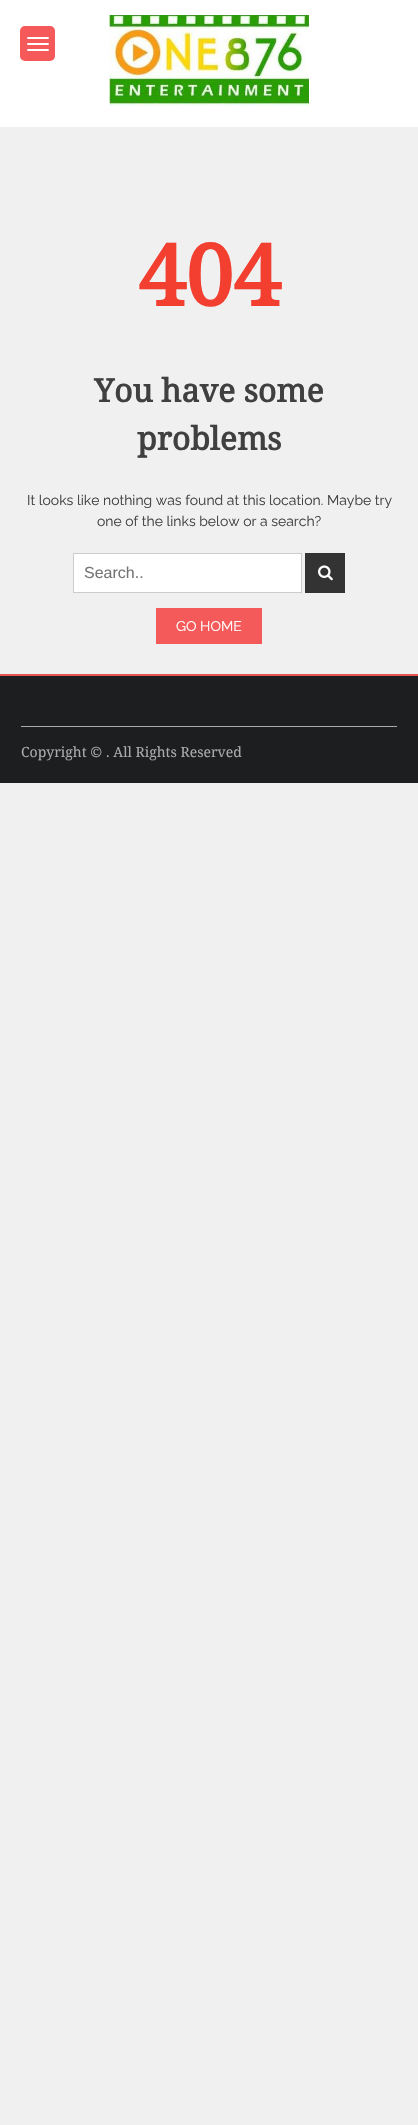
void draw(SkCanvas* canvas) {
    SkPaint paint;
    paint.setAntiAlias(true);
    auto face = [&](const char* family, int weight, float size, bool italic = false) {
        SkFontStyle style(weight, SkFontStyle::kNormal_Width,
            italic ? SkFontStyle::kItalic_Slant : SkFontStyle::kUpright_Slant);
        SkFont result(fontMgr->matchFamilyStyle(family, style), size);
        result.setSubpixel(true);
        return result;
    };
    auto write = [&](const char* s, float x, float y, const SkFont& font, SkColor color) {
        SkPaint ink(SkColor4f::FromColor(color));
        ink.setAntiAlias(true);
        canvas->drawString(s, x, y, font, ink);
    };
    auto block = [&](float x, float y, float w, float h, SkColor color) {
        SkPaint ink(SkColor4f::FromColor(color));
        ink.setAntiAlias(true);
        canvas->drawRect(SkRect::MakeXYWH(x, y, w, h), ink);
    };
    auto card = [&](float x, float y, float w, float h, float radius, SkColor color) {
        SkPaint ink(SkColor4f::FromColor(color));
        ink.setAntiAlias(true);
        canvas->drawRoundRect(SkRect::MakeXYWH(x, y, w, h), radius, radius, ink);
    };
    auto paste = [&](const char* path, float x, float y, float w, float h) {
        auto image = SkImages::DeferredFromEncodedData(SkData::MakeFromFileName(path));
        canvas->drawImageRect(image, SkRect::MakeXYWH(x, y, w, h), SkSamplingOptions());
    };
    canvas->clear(SkColorSetRGB(240, 240, 240));
    block(0, 0, 418, 127, SK_ColorWHITE);
    paste("pic1.png", 109, 15, 200, 91);
    card(20, 26, 35, 35, 5, SkColorSetRGB(245, 89, 90));
    card(27, 43, 22, 2, 1, SK_ColorWHITE);
    card(27, 37, 22, 2, 1, SK_ColorWHITE);
    card(27, 49, 22, 2, 1, SK_ColorWHITE);
    auto kFont1 = face("Droid Serif", 700, 85);
    write("404", 138, 306, kFont1, SkColorSetRGB(242, 63, 48));
    auto kFont2 = face("Droid Serif", 700, 32);
    write("You have some", 94, 402, kFont2, SkColorSetRGB(64, 64, 64));
    write("problems", 137, 450, kFont2, SkColorSetRGB(64, 64, 64));
    auto kFont3 = face("Raleway", 400, 14);
    write("It looks like nothing was found at this location. Maybe try", 27, 505, kFont3, SkColorSetRGB(64, 64, 64));
    write("one of the links below or a search?", 97, 526, kFont3, SkColorSetRGB(64, 64, 64));
    paint.setColor(SK_ColorWHITE);
    canvas->drawRect(SkRect::MakeXYWH(73.5f, 553.5f, 228, 39), paint);
    paint.setStyle(SkPaint::kStroke_Style);
    paint.setStrokeWidth(1);
    paint.setColor(SkColorSetRGB(204, 204, 204));
    canvas->drawRect(SkRect::MakeXYWH(73.5f, 553.5f, 228, 39), paint);
    auto kFont4 = face("Liberation Sans", 400, 16);
    write("Search..", 84, 578, kFont4, SkColorSetRGB(117, 117, 117));
    block(305, 553, 40, 40, SkColorSetRGB(51, 51, 51));
    paste("pic2.png", 318, 565, 15, 16);
    block(156, 608, 106, 36, SkColorSetRGB(245, 90, 90));
    write("GO HOME", 176, 631, kFont3, SK_ColorWHITE);
    block(0, 676, 418, 107, SkColorSetRGB(29, 30, 32));
    block(0, 674, 418, 2, SkColorSetRGB(232, 84, 84));
    block(21, 726, 376, 1, SkColorSetRGB(170, 170, 170));
    auto kFont5 = face("Droid Serif", 400, 14);
    write("Copyright © . All Rights Reserved", 21, 757, kFont5, SkColorSetRGB(170, 170, 170));
}
